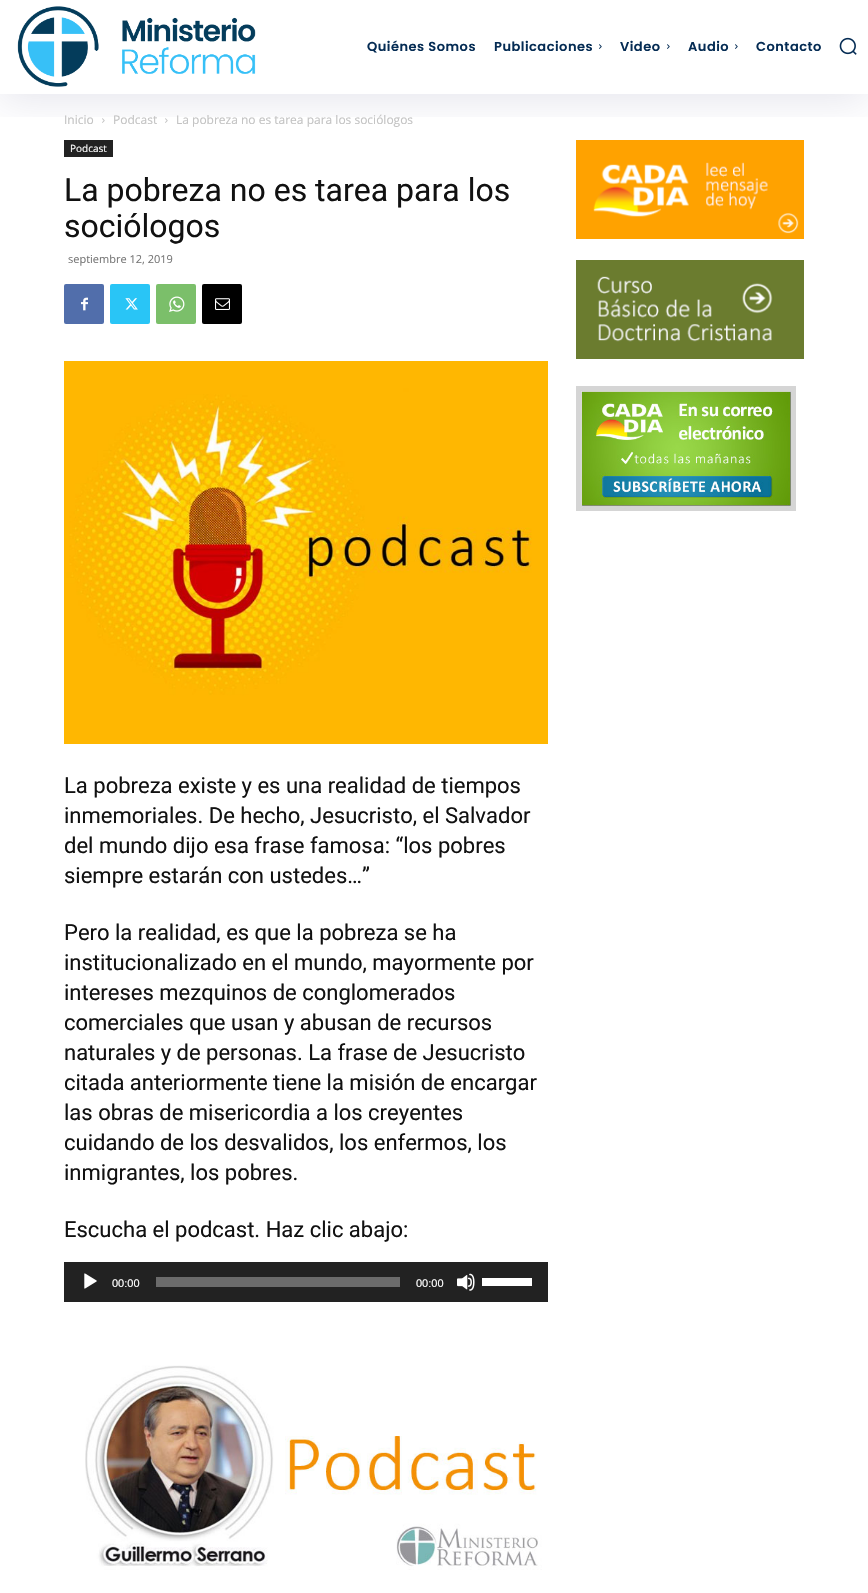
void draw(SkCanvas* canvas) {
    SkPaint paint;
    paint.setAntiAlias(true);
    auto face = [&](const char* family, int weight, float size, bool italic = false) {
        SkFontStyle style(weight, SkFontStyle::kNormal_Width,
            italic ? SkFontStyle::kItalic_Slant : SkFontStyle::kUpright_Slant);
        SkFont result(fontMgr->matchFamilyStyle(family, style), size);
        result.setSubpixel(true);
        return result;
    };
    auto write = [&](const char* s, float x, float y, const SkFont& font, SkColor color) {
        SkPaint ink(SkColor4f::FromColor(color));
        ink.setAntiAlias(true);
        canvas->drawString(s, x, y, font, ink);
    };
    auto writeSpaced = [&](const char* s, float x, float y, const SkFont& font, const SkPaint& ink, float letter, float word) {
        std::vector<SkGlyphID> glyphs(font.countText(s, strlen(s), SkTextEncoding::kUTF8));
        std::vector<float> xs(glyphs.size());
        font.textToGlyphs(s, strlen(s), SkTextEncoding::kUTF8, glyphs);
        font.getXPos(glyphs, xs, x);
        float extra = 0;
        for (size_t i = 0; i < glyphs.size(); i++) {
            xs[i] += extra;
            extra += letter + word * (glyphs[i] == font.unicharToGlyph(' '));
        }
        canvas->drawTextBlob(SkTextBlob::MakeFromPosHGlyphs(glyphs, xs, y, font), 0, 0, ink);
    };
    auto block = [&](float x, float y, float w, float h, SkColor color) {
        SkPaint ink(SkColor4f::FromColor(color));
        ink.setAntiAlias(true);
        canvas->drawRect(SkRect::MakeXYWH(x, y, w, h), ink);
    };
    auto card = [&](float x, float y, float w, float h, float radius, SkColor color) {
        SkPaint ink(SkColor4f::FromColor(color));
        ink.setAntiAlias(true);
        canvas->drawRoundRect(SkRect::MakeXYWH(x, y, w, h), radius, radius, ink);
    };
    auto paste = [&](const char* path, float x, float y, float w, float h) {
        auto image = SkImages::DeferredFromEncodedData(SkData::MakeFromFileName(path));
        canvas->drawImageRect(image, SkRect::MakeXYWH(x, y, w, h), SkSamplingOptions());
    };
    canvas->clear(SK_ColorWHITE);
    paste("pic1.png", 17, 6, 239, 81);
    paste("pic4.png", 102, 118, 3, 5);
    paste("pic4.png", 165, 118, 3, 5);
    block(64, 140, 49, 17, SkColorSetRGB(34, 34, 34));
    paste("pic13.png", 576, 140, 228, 99);
    canvas->save();
    canvas->clipRect(SkRect::MakeXYWH(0, 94, 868, 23));
    paint.setColor(SkColorSetARGB(26, 2, 2, 71));
    paint.setMaskFilter(SkMaskFilter::MakeBlur(kNormal_SkBlurStyle, 20));
    canvas->drawRect(SkRect::MakeXYWH(0, 6, 868, 94), paint);
    paint.setMaskFilter(nullptr);
    canvas->restore();
    auto kFont1 = face("Poppins", 600, 13);
    paint.setColor(SkColorSetRGB(5, 44, 84));
    writeSpaced("Quiénes Somos", 367, 51, kFont1, paint, 0.5f, 0);
    writeSpaced("Publicaciones", 494, 51, kFont1, paint, 0.5f, 0);
    paste("pic2.png", 599, 44, 3, 5);
    writeSpaced("Video", 620, 51, kFont1, paint, 0.5f, 0);
    paste("pic2.png", 667, 44, 3, 5);
    writeSpaced("Audio", 688, 51, kFont1, paint, 0.5f, 0);
    paste("pic2.png", 735, 44, 3, 5);
    writeSpaced("Contacto", 756, 51, kFont1, paint, 0.5f, 0);
    paste("pic3.png", 839, 37, 18, 18);
    auto kFont2 = face("Open Sans", 400, 12);
    write("Inicio", 64, 124, kFont2, SkColorSetRGB(195, 195, 195));
    write("Podcast", 113, 124, kFont2, SkColorSetRGB(195, 195, 195));
    write("La pobreza no es tarea para los sociólogos", 176, 124, kFont2, SkColorSetRGB(195, 195, 195));
    auto kFont3 = face("Open Sans", 400, 10);
    write("Podcast", 70, 152, kFont3, SK_ColorWHITE);
    auto kFont4 = face("Roboto", 400, 32);
    write("La pobreza no es tarea para los", 64, 201, kFont4, SkColorSetRGB(17, 17, 17));
    write("sociólogos", 64, 237, kFont4, SkColorSetRGB(17, 17, 17));
    auto kFont5 = face("Open Sans", 400, 11);
    write("septiembre 12, 2019", 68, 263, kFont5, SkColorSetRGB(118, 118, 118));
    card(64, 284, 40, 40, 2, SkColorSetRGB(81, 110, 171));
    paste("pic5.png", 81, 297, 7, 14);
    card(110, 284, 40, 40, 2, SkColorSetRGB(41, 197, 246));
    paste("pic6.png", 125, 298, 13, 12);
    card(156, 284, 40, 40, 2, SkColorSetRGB(123, 191, 106));
    paste("pic7.png", 169, 296, 16, 16);
    card(202, 284, 40, 40, 2, SK_ColorBLACK);
    paste("pic8.png", 215, 298, 15, 12);
    paste("pic9.png", 64, 361, 484, 383);
    auto kFont6 = face("Roboto", 400, 22);
    write("La pobreza existe y es una realidad de tiempos", 64, 793, kFont6, SkColorSetRGB(17, 17, 17));
    write("inmemoriales. De hecho, Jesucristo, el Salvador", 64, 823, kFont6, SkColorSetRGB(17, 17, 17));
    write("del mundo dijo esa frase famosa: “los pobres", 64, 853, kFont6, SkColorSetRGB(17, 17, 17));
    write("siempre estarán con ustedes…”", 64, 883, kFont6, SkColorSetRGB(17, 17, 17));
    write("Pero la realidad, es que la pobreza se ha", 64, 940, kFont6, SkColorSetRGB(17, 17, 17));
    write("institucionalizado en el mundo, mayormente por", 64, 970, kFont6, SkColorSetRGB(17, 17, 17));
    write("intereses mezquinos de conglomerados", 64, 1000, kFont6, SkColorSetRGB(17, 17, 17));
    write("comerciales que usan y abusan de recursos", 64, 1030, kFont6, SkColorSetRGB(17, 17, 17));
    write("naturales y de personas. La frase de Jesucristo", 64, 1060, kFont6, SkColorSetRGB(17, 17, 17));
    write("citada anteriormente tiene la misión de encargar", 64, 1090, kFont6, SkColorSetRGB(17, 17, 17));
    write("las obras de misericordia a los creyentes", 64, 1120, kFont6, SkColorSetRGB(17, 17, 17));
    write("cuidando de los desvalidos, los enfermos, los", 64, 1150, kFont6, SkColorSetRGB(17, 17, 17));
    write("inmigrantes, los pobres.", 64, 1180, kFont6, SkColorSetRGB(17, 17, 17));
    write("Escucha el podcast. Haz clic abajo:", 64, 1237, kFont6, SkColorSetRGB(17, 17, 17));
    block(64, 1262, 484, 40, SkColorSetRGB(34, 34, 34));
    paste("pic10.png", 84, 1273, 13, 16);
    auto kFont7 = face("Liberation Sans", 400, 11);
    write("00:00", 112, 1287, kFont7, SK_ColorWHITE);
    block(156, 1277, 244, 10, SkColorSetRGB(107, 107, 107));
    write("00:00", 416, 1287, kFont7, SK_ColorWHITE);
    paste("pic11.png", 457, 1273, 18, 18);
    block(482, 1278, 50, 8, SK_ColorWHITE);
    paste("pic12.png", 85, 1365, 457, 205);
    paste("pic14.png", 576, 260, 228, 99);
    paste("pic15.png", 576, 386, 220, 125);
}
